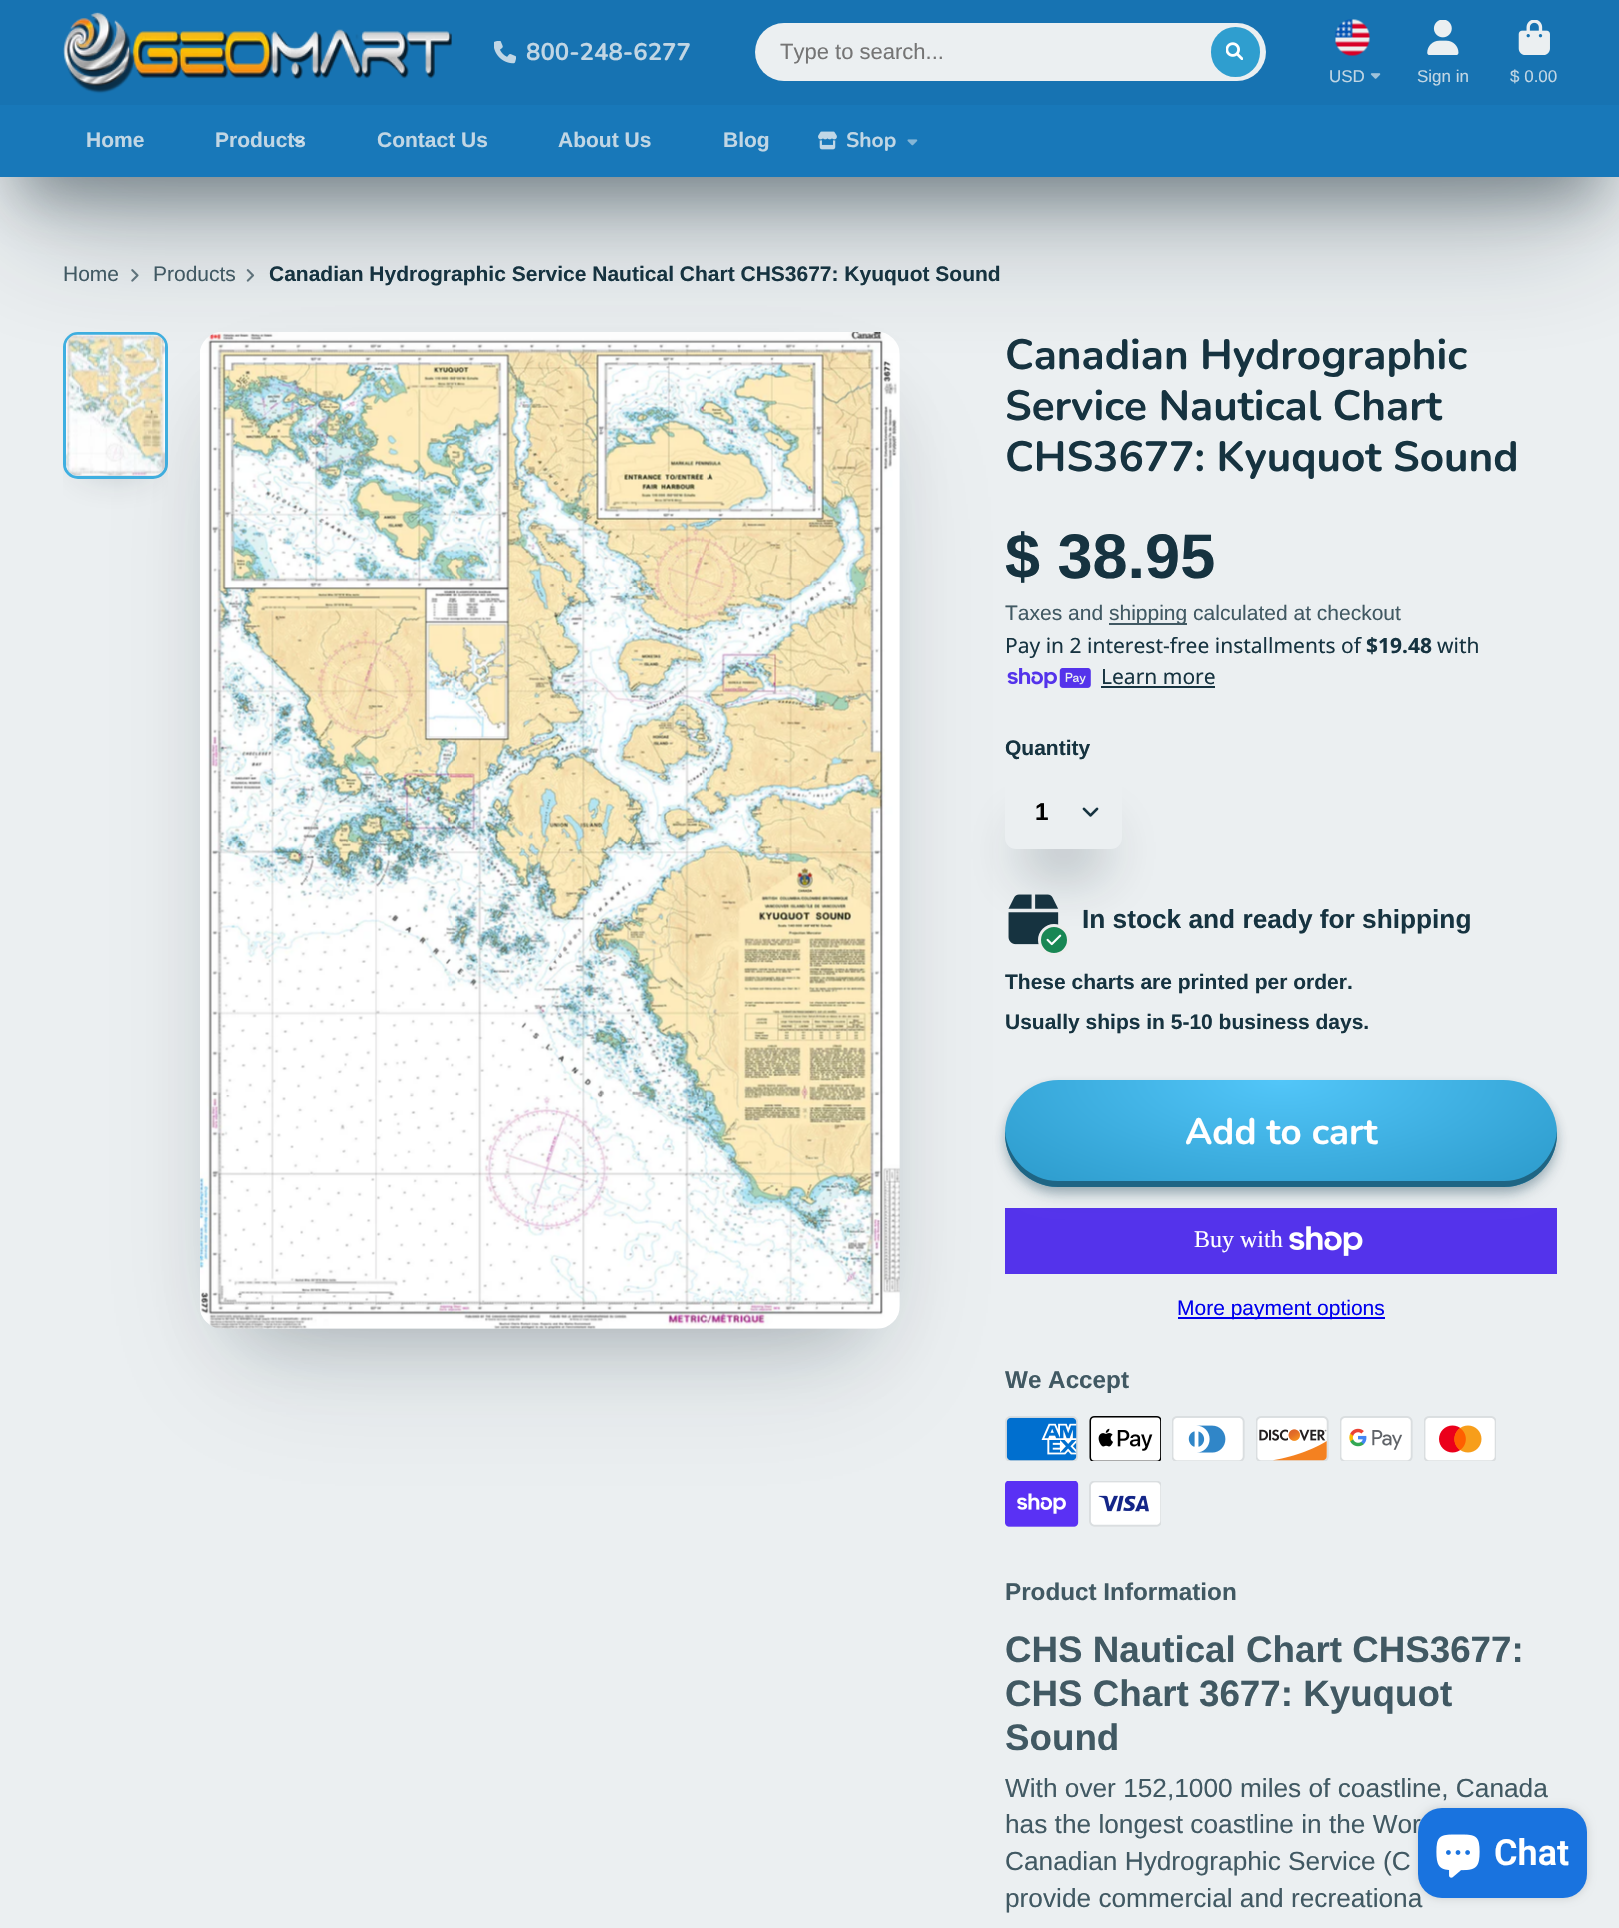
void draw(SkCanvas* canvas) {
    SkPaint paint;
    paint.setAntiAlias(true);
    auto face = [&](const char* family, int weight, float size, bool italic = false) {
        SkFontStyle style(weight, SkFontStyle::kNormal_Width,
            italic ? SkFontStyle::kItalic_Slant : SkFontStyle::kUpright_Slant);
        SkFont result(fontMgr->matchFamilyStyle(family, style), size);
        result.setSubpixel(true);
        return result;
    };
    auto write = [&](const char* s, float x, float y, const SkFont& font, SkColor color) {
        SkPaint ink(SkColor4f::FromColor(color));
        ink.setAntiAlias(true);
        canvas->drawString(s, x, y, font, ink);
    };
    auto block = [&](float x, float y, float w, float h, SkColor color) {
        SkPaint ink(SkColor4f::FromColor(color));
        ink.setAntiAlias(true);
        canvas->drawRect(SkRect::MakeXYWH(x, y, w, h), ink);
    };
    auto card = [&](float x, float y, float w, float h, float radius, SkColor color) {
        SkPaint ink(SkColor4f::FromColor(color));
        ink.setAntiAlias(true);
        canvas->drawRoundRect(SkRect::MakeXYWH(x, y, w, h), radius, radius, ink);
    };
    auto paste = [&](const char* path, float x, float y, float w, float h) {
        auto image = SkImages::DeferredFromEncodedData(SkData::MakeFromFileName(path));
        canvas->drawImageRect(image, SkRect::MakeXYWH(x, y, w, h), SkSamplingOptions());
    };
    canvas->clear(SkColorSetRGB(235, 239, 241));
    paste("pic11.png", 131, 269, 8, 13);
    paste("pic12.png", 246, 269, 9, 13);
    paint.setColor(SkColorSetARGB(102, 15, 36, 45));
    paint.setMaskFilter(SkMaskFilter::MakeBlur(kNormal_SkBlurStyle, 29));
    canvas->drawRect(SkRect::MakeXYWH(21, 60, 1578, 135), paint);
    paint.setMaskFilter(nullptr);
    canvas->save();
    canvas->clipRect(SkRect::MakeXYWH(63, 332, 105, 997));
    paint.setColor(SkColorSetARGB(77, 15, 36, 45));
    paint.setMaskFilter(SkMaskFilter::MakeBlur(kNormal_SkBlurStyle, 21));
    canvas->drawRect(SkRect::MakeXYWH(84, 363, 63, 105), paint);
    paint.setMaskFilter(nullptr);
    canvas->restore();
    paint.setStyle(SkPaint::kStroke_Style);
    paint.setStrokeWidth(3);
    paint.setColor(SkColorSetRGB(62, 175, 225));
    canvas->drawRoundRect(SkRect::MakeXYWH(64.5f, 333.5f, 102, 144), 13.5f, 13.5f, paint);
    paste("pic14.png", 66, 334, 99, 142);
    paint.setStyle(SkPaint::kFill_Style);
    paint.setColor(SkColorSetARGB(77, 15, 36, 45));
    paint.setMaskFilter(SkMaskFilter::MakeBlur(kNormal_SkBlurStyle, 39.5f));
    canvas->drawRect(SkRect::MakeXYWH(239, 411, 622, 918), paint);
    paint.setMaskFilter(nullptr);
    paint.setColor(SkColorSetARGB(26, 15, 36, 45));
    paint.setMaskFilter(SkMaskFilter::MakeBlur(kNormal_SkBlurStyle, 65.5f));
    canvas->drawRect(SkRect::MakeXYWH(227, 423, 648, 945), paint);
    paint.setMaskFilter(nullptr);
    paste("pic13.png", 200, 332, 700, 997);
    paint.setColor(SkColorSetARGB(77, 15, 36, 45));
    paint.setMaskFilter(SkMaskFilter::MakeBlur(kNormal_SkBlurStyle, 65.5f));
    canvas->drawRect(SkRect::MakeXYWH(21, 87, 1578, 135), paint);
    paint.setMaskFilter(nullptr);
    block(0, 0, 1619, 105, SkColorSetRGB(23, 115, 178));
    paste("pic1.png", 63, 12, 389, 82);
    paste("pic2.png", 494, 41, 22, 23);
    auto kFont1 = face("Nunito", 700, 24);
    write("800-248-6277", 526, 60, kFont1, SkColorSetRGB(193, 214, 228));
    card(755, 23, 511, 58, 29, SkColorSetRGB(235, 239, 241));
    auto kFont2 = face("Liberation Sans", 400, 22);
    write("Type to search...", 780, 59, kFont2, SkColorSetRGB(117, 117, 117));
    card(1211, 27, 49, 50, 24.5f, SkColorSetRGB(47, 158, 207));
    paste("pic3.png", 1226, 42, 17, 18);
    paste("pic4.png", 1335, 19, 35, 37);
    auto kFont3 = face("Liberation Sans", 400, 17);
    write("USD", 1329, 82, kFont3, SkColorSetRGB(193, 214, 228));
    paste("pic5.png", 1370, 73, 11, 6);
    paste("pic6.png", 1427, 20, 32, 35);
    write("Sign in", 1417, 82, kFont3, SkColorSetRGB(193, 214, 228));
    paste("pic7.png", 1518, 20, 32, 35);
    write("$ 0.00", 1510, 82, kFont3, SkColorSetRGB(193, 214, 228));
    block(0, 105, 1619, 72, SkColorSetRGB(24, 120, 185));
    auto kFont4 = face("Liberation Sans", 700, 21);
    write("Home", 86, 147, kFont4, SkColorSetRGB(193, 214, 228));
    write("Products", 215, 147, kFont4, SkColorSetRGB(193, 214, 228));
    paste("pic8.png", 292, 137, 13, 8);
    write("Contact Us", 377, 147, kFont4, SkColorSetRGB(193, 214, 228));
    write("About Us", 558, 147, kFont4, SkColorSetRGB(193, 214, 228));
    write("Blog", 723, 147, kFont4, SkColorSetRGB(193, 214, 228));
    paste("pic9.png", 818, 131, 19, 19);
    auto kFont5 = face("Nunito", 700, 21);
    write("Shop", 846, 147, kFont5, SkColorSetRGB(193, 214, 228));
    paste("pic10.png", 907, 139, 11, 7);
    auto kFont6 = face("Liberation Sans", 400, 21);
    write("Home", 63, 281, kFont6, SkColorSetRGB(65, 89, 99));
    write("Products", 153, 281, kFont6, SkColorSetRGB(65, 89, 99));
    write("Canadian Hydrographic Service Nautical Chart CHS3677: Kyuquot Sound", 269, 281, kFont4, SkColorSetRGB(22, 51, 64));
    auto kFont7 = face("Nunito", 700, 42.25f);
    write("Canadian Hydrographic", 1005, 369, kFont7, SkColorSetRGB(22, 51, 64));
    write("Service Nautical Chart", 1005, 420, kFont7, SkColorSetRGB(22, 51, 64));
    write("CHS3677: Kyuquot Sound", 1005, 471, kFont7, SkColorSetRGB(22, 51, 64));
    auto kFont8 = face("Liberation Sans", 700, 63);
    write("$ 38.95", 1005, 578, kFont8, SkColorSetRGB(22, 51, 64));
    write("Taxes and", 1005, 620, kFont6, SkColorSetRGB(65, 89, 99));
    block(1109, 623, 78, 2, SkColorSetRGB(65, 89, 99));
    write("shipping calculated at checkout", 1109, 620, kFont6, SkColorSetRGB(65, 89, 99));
    auto kFont9 = face("Noto Sans", 400, 21);
    write("Pay in 2 interest-free installments of", 1005, 653, kFont9, SkColorSetRGB(22, 51, 64));
    auto kFont10 = face("Noto Sans", 700, 21);
    write("$19.48", 1366, 653, kFont10, SkColorSetRGB(22, 51, 64));
    write("with", 1437, 653, kFont9, SkColorSetRGB(22, 51, 64));
    paste("pic15.png", 1007, 668, 84, 21);
    write("Learn more", 1101, 684, kFont9, SkColorSetRGB(22, 51, 64));
    block(1101, 686, 114, 2, SkColorSetRGB(22, 51, 64));
    write("Quantity", 1005, 755, kFont4, SkColorSetRGB(22, 51, 64));
    paint.setColor(SkColorSetARGB(102, 15, 36, 45));
    paint.setMaskFilter(SkMaskFilter::MakeBlur(kNormal_SkBlurStyle, 29));
    canvas->drawRect(SkRect::MakeXYWH(1026, 834, 75, 33), paint);
    paint.setMaskFilter(nullptr);
    paint.setColor(SkColorSetRGB(235, 239, 241));
    canvas->drawRoundRect(SkRect::MakeXYWH(1006.5f, 775.5f, 114, 72), 9.5f, 9.5f, paint);
    paint.setStyle(SkPaint::kStroke_Style);
    canvas->drawRoundRect(SkRect::MakeXYWH(1006.5f, 775.5f, 114, 72), 9.5f, 9.5f, paint);
    auto kFont11 = face("Liberation Sans", 700, 24.25f);
    write("1", 1035, 820, kFont11, SK_ColorBLACK);
    paste("pic16.png", 1082, 807, 17, 10);
    paste("pic17.png", 1008, 894, 51, 51);
    paint.setStyle(SkPaint::kFill_Style);
    paint.setColor(SkColorSetRGB(25, 135, 84));
    canvas->drawCircle(1054, 940, 14.5f, paint);
    paint.setStyle(SkPaint::kStroke_Style);
    paint.setColor(SkColorSetRGB(237, 237, 237));
    canvas->drawCircle(1054, 940, 14.5f, paint);
    paste("pic18.png", 1046, 934, 16, 12);
    auto kFont12 = face("Liberation Sans", 700, 26.25f);
    write("In stock and ready for shipping", 1082, 928, kFont12, SkColorSetRGB(22, 51, 64));
    write("These charts are printed per order.", 1005, 989, kFont4, SkColorSetRGB(22, 51, 64));
    write("Usually ships in 5-10 business days.", 1005, 1029, kFont4, SkColorSetRGB(22, 51, 64));
    block(1005, 1208, 552, 66, SkColorSetRGB(84, 51, 235));
    paste("pic19.png", 1289, 1226, 74, 30);
    paint.setStyle(SkPaint::kFill_Style);
    paint.setColor(SkColorSetARGB(38, 19, 63, 82));
    paint.setMaskFilter(SkMaskFilter::MakeBlur(kNormal_SkBlurStyle, 11));
    canvas->drawRoundRect(SkRect::MakeXYWH(1011, 1097, 540, 96), 48, 48, paint);
    paint.setMaskFilter(nullptr);
    paint.setColor(SkColorSetARGB(77, 19, 63, 82));
    paint.setMaskFilter(SkMaskFilter::MakeBlur(kNormal_SkBlurStyle, 5.5f));
    canvas->drawRoundRect(SkRect::MakeXYWH(1005, 1086, 552, 107), 53.5f, 53.5f, paint);
    paint.setMaskFilter(nullptr);
    canvas->save();
    canvas->clipPath(SkPathBuilder().moveTo(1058.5f, 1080).lineTo(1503.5f, 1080).cubicTo(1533, 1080, 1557, 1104, 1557, 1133.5f).cubicTo(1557, 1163, 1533, 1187, 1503.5f, 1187).lineTo(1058.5f, 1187).cubicTo(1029, 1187, 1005, 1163, 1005, 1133.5f).cubicTo(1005, 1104, 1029, 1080, 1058.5f, 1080).close().detach(), true);
    paint.setColor(SkColorSetARGB(38, 19, 63, 82));
    paint.setMaskFilter(SkMaskFilter::MakeBlur(kNormal_SkBlurStyle, 11));
    canvas->drawRoundRect(SkRect::MakeXYWH(1011, 1097, 540, 96), 48, 48, paint);
    paint.setMaskFilter(nullptr);
    paint.setColor(SkColorSetARGB(77, 19, 63, 82));
    paint.setMaskFilter(SkMaskFilter::MakeBlur(kNormal_SkBlurStyle, 5.5f));
    canvas->drawRoundRect(SkRect::MakeXYWH(1005, 1086, 552, 107), 53.5f, 53.5f, paint);
    paint.setMaskFilter(nullptr);
    canvas->restore();
    {
        const SkColor colors[] = {SkColorSetRGB(82, 198, 249), SkColorSetRGB(47, 158, 207)};
        const float stops[] = {0, 0.9f};
        SkMatrix m = SkMatrix::Translate(1281, 1080).preScale(390, 151);
        paint.setShader(SkGradientShader::MakeRadial({0, 0}, 1, colors, stops, 2, SkTileMode::kClamp, 0, &m));
        paint.setAlpha(255);
    }
    canvas->drawRoundRect(SkRect::MakeXYWH(1005, 1080, 552, 107), 53.5f, 53.5f, paint);
    paint.setShader(nullptr);
    paint.setColor(SkColorSetRGB(30, 101, 132));
    canvas->drawPath(SkPathBuilder().moveTo(1005, 1131).lineTo(1005, 1134).cubicTo(1005, 1163, 1029, 1187, 1058, 1187).lineTo(1504, 1187).cubicTo(1533, 1187, 1557, 1163, 1557, 1134).lineTo(1557, 1131).cubicTo(1555, 1158, 1532, 1181, 1504, 1181).lineTo(1058, 1181).cubicTo(1030, 1181, 1007, 1158, 1005, 1131).close().detach(), paint);
    auto kFont13 = face("Nunito", 700, 36.75f);
    write("Add to cart", 1185, 1144, kFont13, SK_ColorWHITE);
    auto kFont14 = face("Liberation Serif", 400, 24);
    write("Buy with", 1194, 1247, kFont14, SK_ColorWHITE);
    block(1178, 1317, 207, 2, SkColorSetRGB(0, 0, 238));
    write("More payment options", 1177, 1315, kFont6, SkColorSetRGB(0, 0, 238));
    write("We Accept", 1005, 1388, kFont11, SkColorSetRGB(65, 89, 99));
    paste("pic20.png", 1005, 1416, 73, 45);
    paste("pic21.png", 1089, 1416, 72, 45);
    paste("pic22.png", 1172, 1416, 73, 45);
    paste("pic23.png", 1256, 1416, 73, 45);
    paste("pic24.png", 1340, 1416, 73, 45);
    paste("pic25.png", 1424, 1416, 72, 45);
    paste("pic26.png", 1005, 1481, 74, 46);
    paste("pic27.png", 1089, 1481, 72, 46);
    write("Product Information", 1005, 1600, kFont11, SkColorSetRGB(65, 89, 99));
    auto kFont15 = face("Liberation Sans", 700, 36.75f);
    write("CHS Nautical Chart CHS3677:", 1005, 1662, kFont15, SkColorSetRGB(65, 89, 99));
    write("CHS Chart 3677: Kyuquot", 1005, 1706, kFont15, SkColorSetRGB(65, 89, 99));
    write("Sound", 1005, 1750, kFont15, SkColorSetRGB(65, 89, 99));
    auto kFont16 = face("Liberation Sans", 400, 26.25f);
    write("With over 152,1000 miles of coastline, Canada", 1005, 1797, kFont16, SkColorSetRGB(65, 89, 99));
    write("has the longest coastline in the Wor", 1005, 1833, kFont16, SkColorSetRGB(65, 89, 99));
    write("Canadian Hydrographic Service (C", 1005, 1870, kFont16, SkColorSetRGB(65, 89, 99));
    write("provide commercial and recreationa", 1005, 1907, kFont16, SkColorSetRGB(65, 89, 99));
    paint.setColor(SkColorSetARGB(38, 0, 0, 0));
    paint.setMaskFilter(SkMaskFilter::MakeBlur(kNormal_SkBlurStyle, 4));
    canvas->drawRoundRect(SkRect::MakeXYWH(1418, 1808, 169, 90), 24, 24, paint);
    paint.setMaskFilter(nullptr);
    card(1418, 1808, 169, 90, 24, SkColorSetRGB(25, 115, 223));
    paste("pic28.png", 1436, 1834, 44, 44);
    auto kFont17 = face("Roboto", 600, 36);
    write("Chat", 1494, 1865, kFont17, SK_ColorWHITE);
}
